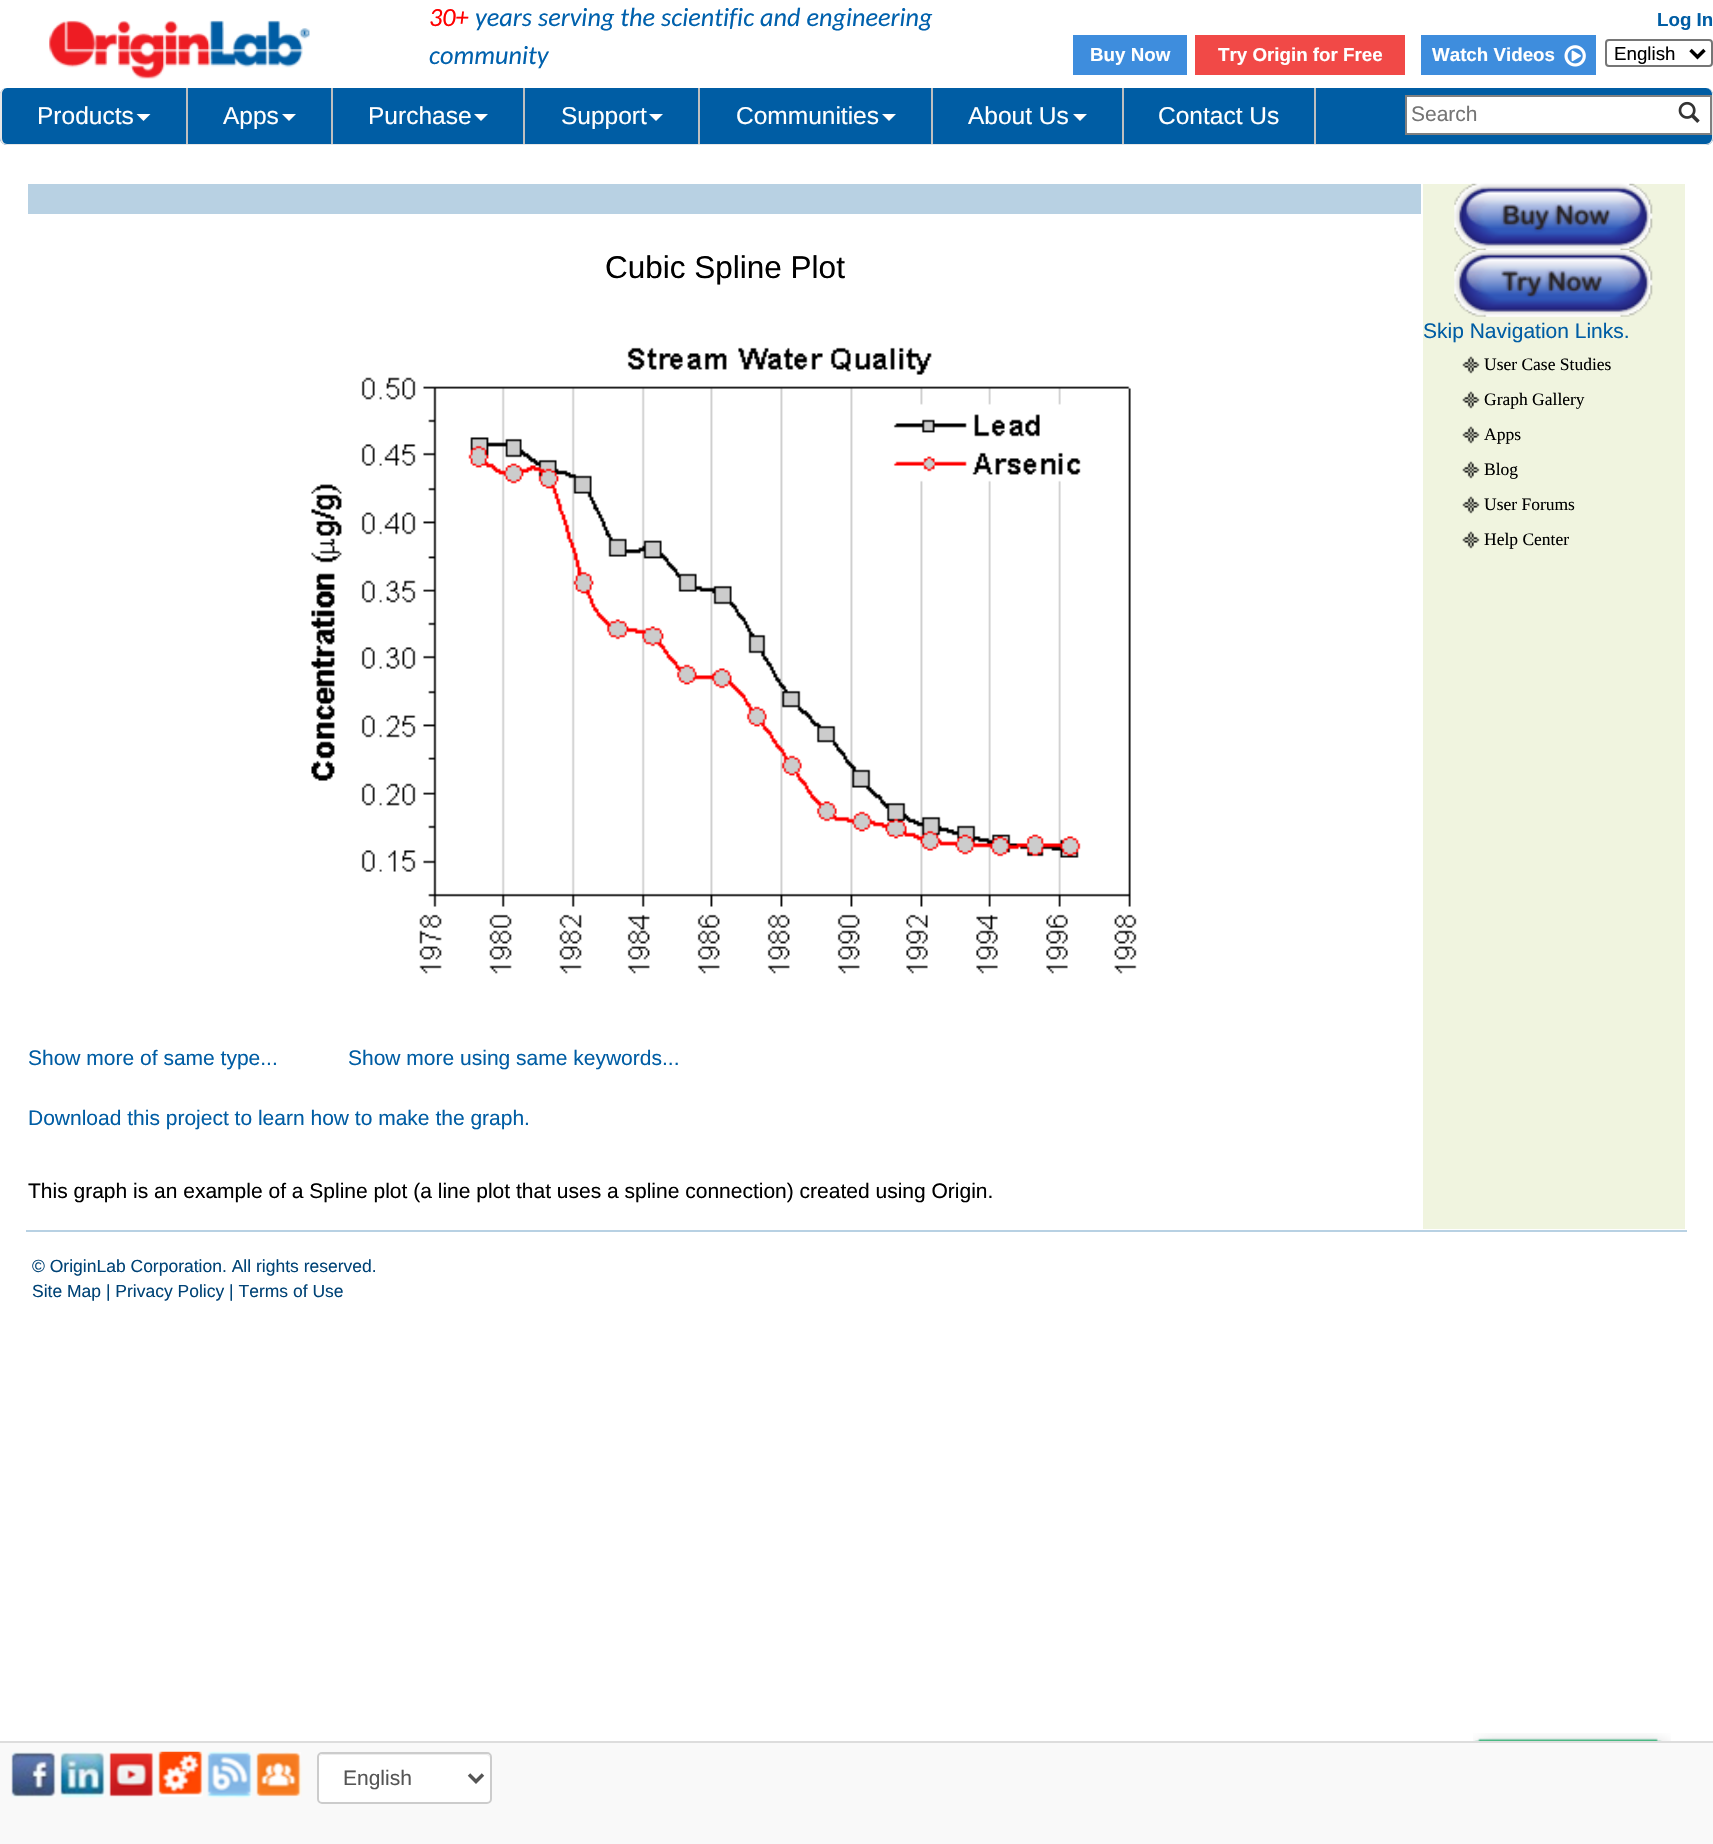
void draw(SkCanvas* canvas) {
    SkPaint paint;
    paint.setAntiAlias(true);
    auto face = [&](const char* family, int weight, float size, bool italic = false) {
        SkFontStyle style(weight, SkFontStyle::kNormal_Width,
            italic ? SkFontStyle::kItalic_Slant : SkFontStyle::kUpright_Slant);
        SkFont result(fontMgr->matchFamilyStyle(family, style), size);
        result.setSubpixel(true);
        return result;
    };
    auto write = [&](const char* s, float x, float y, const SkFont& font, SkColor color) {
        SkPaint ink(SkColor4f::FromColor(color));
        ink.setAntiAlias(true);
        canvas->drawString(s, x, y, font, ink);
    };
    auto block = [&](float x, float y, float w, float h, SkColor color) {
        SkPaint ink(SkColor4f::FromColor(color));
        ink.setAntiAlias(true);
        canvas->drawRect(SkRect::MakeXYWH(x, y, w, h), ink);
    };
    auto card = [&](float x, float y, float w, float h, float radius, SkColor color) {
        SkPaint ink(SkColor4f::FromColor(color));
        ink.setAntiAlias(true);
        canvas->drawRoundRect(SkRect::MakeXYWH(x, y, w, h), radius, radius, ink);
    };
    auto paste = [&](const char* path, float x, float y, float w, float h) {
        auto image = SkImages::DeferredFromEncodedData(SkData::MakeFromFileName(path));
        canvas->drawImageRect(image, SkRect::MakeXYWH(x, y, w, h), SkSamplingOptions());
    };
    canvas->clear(SK_ColorWHITE);
    paste("pic1.png", 49, 20, 261, 59);
    auto kFont1 = face("Carlito", 400, 26.25f, true);
    write("30+", 429, 26, kFont1, SkColorSetRGB(255, 0, 0));
    write("years serving the scientific and engineering", 475, 26, kFont1, SkColorSetRGB(0, 97, 173));
    write("community", 429, 64, kFont1, SkColorSetRGB(0, 97, 173));
    auto kFont2 = face("Liberation Sans", 700, 18.75f);
    write("Log In", 1657, 26, kFont2, SkColorSetRGB(0, 93, 164));
    block(1073, 35, 114, 40, SkColorSetRGB(62, 141, 221));
    write("Buy Now", 1090, 61, kFont2, SK_ColorWHITE);
    block(1195, 35, 210, 40, SkColorSetRGB(241, 73, 71));
    write("Try Origin for Free", 1218, 61, kFont2, SK_ColorWHITE);
    block(1421, 35, 175, 40, SkColorSetRGB(62, 141, 221));
    write("Watch Videos", 1432, 61, kFont2, SK_ColorWHITE);
    paste("pic2.png", 1564, 45, 22, 22);
    paint.setStyle(SkPaint::kStroke_Style);
    paint.setStrokeWidth(2);
    paint.setColor(SkColorSetRGB(118, 118, 118));
    canvas->drawRoundRect(SkRect::MakeXYWH(1606, 40, 106, 26), 3, 3, paint);
    paint.setStrokeWidth(3.5f);
    paint.setColor(SK_ColorBLACK);
    canvas->drawPath(SkPathBuilder().moveTo(1690.5f, 50).lineTo(1697.5f, 57).lineTo(1704.5f, 50).detach(), paint);
    auto kFont3 = face("Liberation Sans", 400, 18.75f);
    write("English", 1614, 60, kFont3, SK_ColorBLACK);
    card(0, 88, 1713, 57, 7, SkColorSetRGB(0, 93, 164));
    paint.setStyle(SkPaint::kFill_Style);
    paint.setColor(SkColorSetRGB(231, 231, 231));
    canvas->drawPath(SkPathBuilder(SkPathFillType::kEvenOdd).moveTo(7, 88).lineTo(1706, 88).cubicTo(1710, 88, 1713, 91, 1713, 94).lineTo(1713, 138).cubicTo(1713, 142, 1710, 145, 1706, 145).lineTo(7, 145).cubicTo(3, 145, 0, 142, 0, 138).lineTo(0, 94).cubicTo(0, 91, 3, 88, 7, 88).close().moveTo(7, 88).lineTo(1706, 88).cubicTo(1709, 88, 1712, 91, 1712, 94).lineTo(1712, 138).cubicTo(1712, 141, 1709, 144, 1706, 144).lineTo(7, 144).cubicTo(4, 144, 2, 141, 2, 138).lineTo(2, 94).cubicTo(2, 91, 4, 88, 7, 88).close().detach(), paint);
    block(186, 88, 2, 56, SkColorSetRGB(191, 191, 191));
    auto kFont4 = face("Liberation Sans", 400, 24.5f);
    write("Products", 37, 124, kFont4, SK_ColorWHITE);
    paint.setColor(SK_ColorWHITE);
    canvas->drawPath(SkPathBuilder().moveTo(136.5f, 114).lineTo(150.5f, 114).lineTo(143.5f, 121).close().detach(), paint);
    block(331, 88, 2, 56, SkColorSetRGB(191, 191, 191));
    write("Apps", 223, 124, kFont4, SK_ColorWHITE);
    canvas->drawPath(SkPathBuilder().moveTo(282, 114).lineTo(296, 114).lineTo(289, 121).close().detach(), paint);
    block(523, 88, 2, 56, SkColorSetRGB(191, 191, 191));
    write("Purchase", 368, 124, kFont4, SK_ColorWHITE);
    canvas->drawPath(SkPathBuilder().moveTo(474, 114).lineTo(488, 114).lineTo(481, 121).close().detach(), paint);
    block(698, 88, 2, 56, SkColorSetRGB(191, 191, 191));
    write("Support", 561, 124, kFont4, SK_ColorWHITE);
    canvas->drawPath(SkPathBuilder().moveTo(649, 114).lineTo(663, 114).lineTo(656, 121).close().detach(), paint);
    block(931, 88, 2, 56, SkColorSetRGB(191, 191, 191));
    write("Communities", 736, 124, kFont4, SK_ColorWHITE);
    canvas->drawPath(SkPathBuilder().moveTo(882, 114).lineTo(896, 114).lineTo(889, 121).close().detach(), paint);
    block(1122, 88, 2, 56, SkColorSetRGB(191, 191, 191));
    write("About Us", 968, 124, kFont4, SK_ColorWHITE);
    canvas->drawPath(SkPathBuilder().moveTo(1073, 114).lineTo(1087, 114).lineTo(1080, 121).close().detach(), paint);
    block(1314, 88, 2, 56, SkColorSetRGB(191, 191, 191));
    write("Contact Us", 1158, 124, kFont4, SK_ColorWHITE);
    block(1407, 97, 303, 36, SK_ColorWHITE);
    block(1405, 95, 307, 2, SkColorSetRGB(128, 128, 128));
    block(1405, 133, 263, 2, SkColorSetRGB(128, 128, 128));
    block(1405, 95, 2, 40, SkColorSetRGB(128, 128, 128));
    auto kFont5 = face("Liberation Sans", 400, 21);
    write("Search", 1411, 121, kFont5, SkColorSetRGB(117, 117, 117));
    block(1710, 95, 2, 40, SkColorSetRGB(128, 128, 128));
    block(1668, 133, 44, 2, SkColorSetRGB(128, 128, 128));
    paste("pic3.png", 1678, 101, 22, 22);
    auto kFont6 = face("Liberation Sans", 400, 31.5f);
    write("Cubic Spline Plot", 605, 278, kFont6, SK_ColorBLACK);
    paste("pic4.png", 311, 347, 826, 627);
    block(28, 184, 1393, 30, SkColorSetRGB(184, 209, 227));
    block(1423, 184, 262, 1045, SkColorSetRGB(240, 244, 223));
    paste("pic5.png", 1454, 183, 199, 68);
    paste("pic6.png", 1454, 250, 199, 67);
    write("Skip Navigation Links.", 1423, 338, kFont5, SkColorSetRGB(0, 93, 164));
    paste("pic7.png", 1462, 356, 18, 18);
    auto kFont7 = face("Liberation Serif", 400, 17.5f);
    write("User Case Studies", 1484, 370, kFont7, SK_ColorBLACK);
    paste("pic7.png", 1462, 391, 18, 18);
    write("Graph Gallery", 1484, 405, kFont7, SK_ColorBLACK);
    paste("pic7.png", 1462, 426, 18, 18);
    write("Apps", 1484, 440, kFont7, SK_ColorBLACK);
    paste("pic7.png", 1462, 461, 18, 18);
    write("Blog", 1484, 475, kFont7, SK_ColorBLACK);
    paste("pic7.png", 1462, 496, 18, 18);
    write("User Forums", 1484, 510, kFont7, SK_ColorBLACK);
    paste("pic7.png", 1462, 531, 18, 18);
    write("Help Center", 1484, 545, kFont7, SK_ColorBLACK);
    write("Show more of same type...", 28, 1065, kFont5, SkColorSetRGB(0, 93, 164));
    write("Show more using same keywords...", 348, 1065, kFont5, SkColorSetRGB(0, 93, 164));
    write("Download this project to learn how to make the graph.", 28, 1125, kFont5, SkColorSetRGB(0, 93, 164));
    write("This graph is an example of a Spline plot (a line plot that uses a spline connection) created using Origin.", 28, 1198, kFont5, SK_ColorBLACK);
    block(26, 1230, 1661, 2, SkColorSetRGB(184, 209, 227));
    auto kFont8 = face("Liberation Sans", 400, 17.5f);
    write("© OriginLab Corporation. All rights reserved.", 32, 1272, kFont8, SkColorSetRGB(0, 67, 118));
    write("Site Map | Privacy Policy | Terms of Use", 32, 1297, kFont8, SkColorSetRGB(0, 67, 118));
    paste("pic8.png", 1473, 1733, 198, 8);
    block(0, 1743, 1713, 101, SkColorSetRGB(249, 249, 249));
    block(0, 1741, 1713, 2, SkColorSetRGB(221, 221, 221));
    paste("pic9.png", 11, 1752, 45, 46);
    paste("pic10.png", 60, 1752, 46, 46);
    paste("pic11.png", 109, 1752, 45, 45);
    paste("pic12.png", 158, 1751, 45, 46);
    paste("pic13.png", 207, 1751, 46, 47);
    paste("pic14.png", 256, 1752, 46, 45);
    card(317, 1752, 175, 52, 5, SK_ColorWHITE);
    paint.setColor(SkColorSetRGB(236, 236, 236));
    canvas->drawPath(SkPathBuilder().moveTo(322, 1755).lineTo(486, 1755).cubicTo(488, 1755, 490, 1757, 490, 1759).lineTo(490, 1758).cubicTo(490, 1756, 488, 1754, 486, 1754).lineTo(323, 1754).cubicTo(322, 1754, 320, 1755, 320, 1756).close().detach(), paint);
    paint.setStyle(SkPaint::kStroke_Style);
    paint.setStrokeWidth(2);
    paint.setColor(SkColorSetRGB(204, 204, 204));
    canvas->drawRoundRect(SkRect::MakeXYWH(318, 1753, 173, 50), 4, 4, paint);
    paint.setStrokeWidth(3.5f);
    paint.setColor(SkColorSetRGB(85, 85, 85));
    canvas->drawPath(SkPathBuilder().moveTo(469, 1774.5f).lineTo(476, 1781.5f).lineTo(483, 1774.5f).detach(), paint);
    write("English", 343, 1785, kFont5, SkColorSetRGB(85, 85, 85));
}
